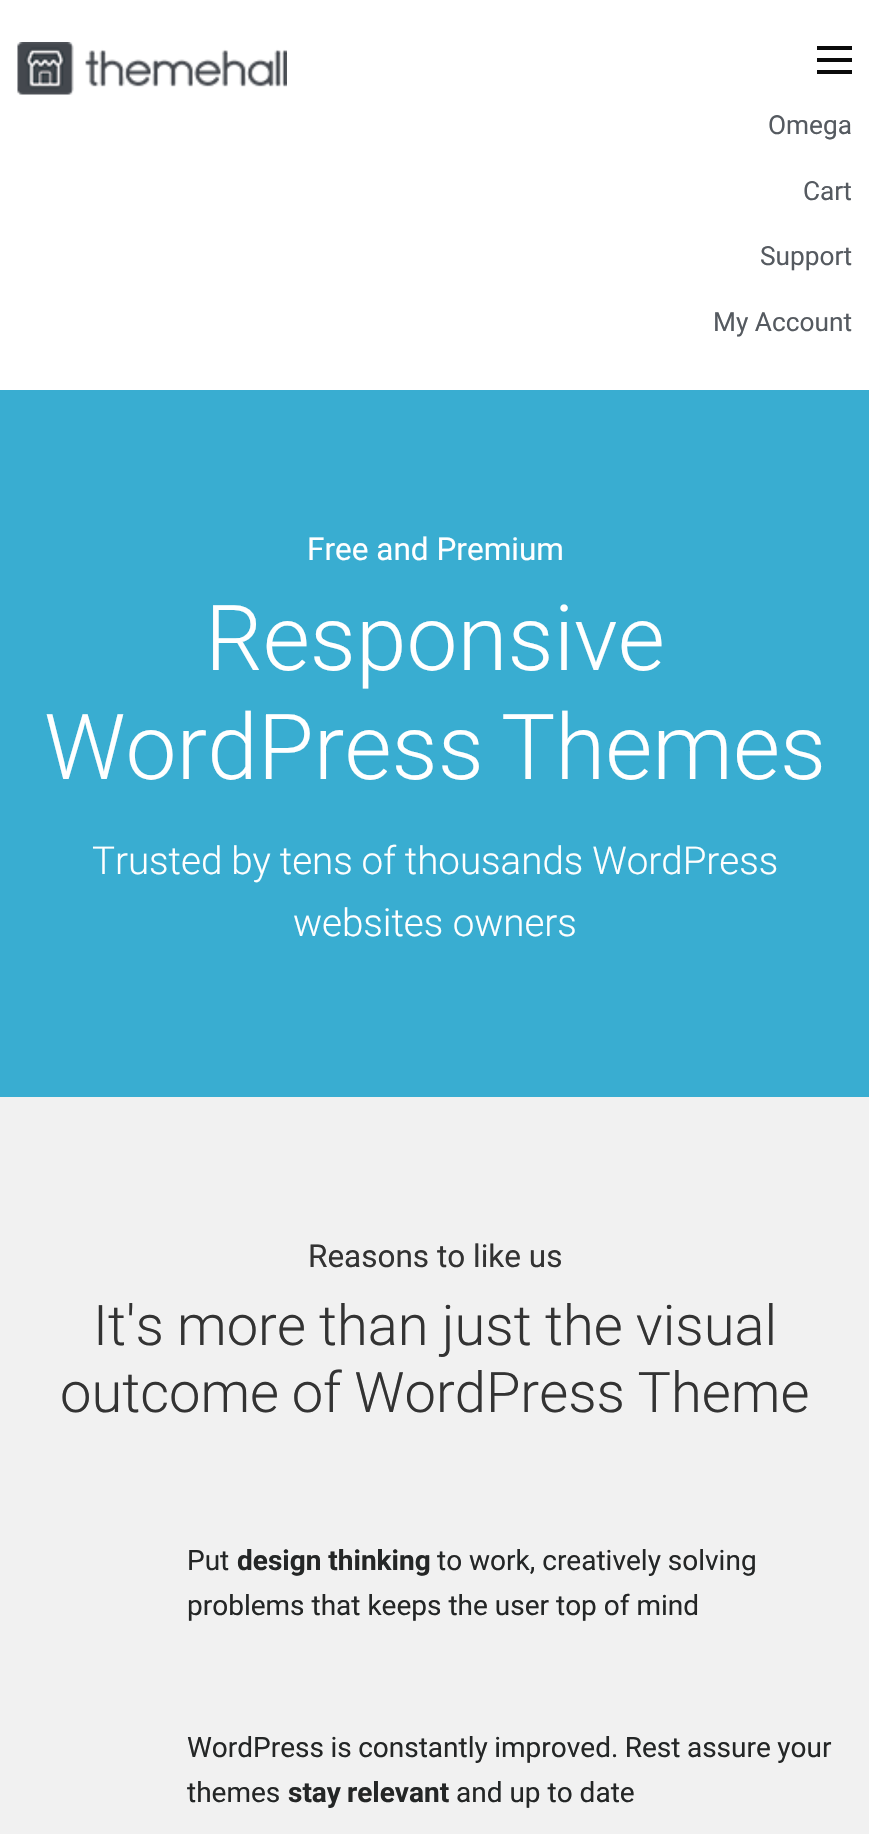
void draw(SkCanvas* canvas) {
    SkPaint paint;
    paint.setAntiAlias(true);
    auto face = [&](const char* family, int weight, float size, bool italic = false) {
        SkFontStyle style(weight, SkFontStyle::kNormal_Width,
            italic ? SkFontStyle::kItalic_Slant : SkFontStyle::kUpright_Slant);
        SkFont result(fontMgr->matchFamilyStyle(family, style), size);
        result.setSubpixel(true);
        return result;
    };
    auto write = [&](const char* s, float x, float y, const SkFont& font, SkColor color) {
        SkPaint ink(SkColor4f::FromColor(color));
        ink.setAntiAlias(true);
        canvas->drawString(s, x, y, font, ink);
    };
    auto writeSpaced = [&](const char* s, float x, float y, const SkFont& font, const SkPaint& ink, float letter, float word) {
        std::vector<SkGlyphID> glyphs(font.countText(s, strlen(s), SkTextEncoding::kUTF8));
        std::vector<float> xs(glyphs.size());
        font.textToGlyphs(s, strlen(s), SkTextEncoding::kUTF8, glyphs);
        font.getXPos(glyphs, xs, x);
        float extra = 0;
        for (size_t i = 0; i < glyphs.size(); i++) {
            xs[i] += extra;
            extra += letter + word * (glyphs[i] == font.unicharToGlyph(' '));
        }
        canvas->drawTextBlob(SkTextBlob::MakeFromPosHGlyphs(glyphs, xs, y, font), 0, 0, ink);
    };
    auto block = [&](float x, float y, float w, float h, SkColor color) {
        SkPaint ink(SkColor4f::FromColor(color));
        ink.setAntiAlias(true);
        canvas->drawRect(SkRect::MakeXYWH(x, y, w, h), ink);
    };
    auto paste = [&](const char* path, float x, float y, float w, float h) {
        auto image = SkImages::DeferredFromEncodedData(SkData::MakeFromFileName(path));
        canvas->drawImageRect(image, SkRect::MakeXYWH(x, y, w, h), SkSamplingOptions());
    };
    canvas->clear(SK_ColorWHITE);
    paste("pic1.png", 17, 42, 270, 53);
    block(817, 70, 35, 4, SkColorSetRGB(10, 10, 10));
    block(817, 58, 35, 4, SkColorSetRGB(10, 10, 10));
    block(817, 46, 35, 4, SkColorSetRGB(10, 10, 10));
    auto kFont1 = face("Roboto", 400, 26.25f);
    write("Omega", 768, 134, kFont1, SkColorSetRGB(85, 90, 96));
    write("Cart", 803, 200, kFont1, SkColorSetRGB(85, 90, 96));
    write("Support", 760, 265, kFont1, SkColorSetRGB(85, 90, 96));
    write("My Account", 713, 331, kFont1, SkColorSetRGB(85, 90, 96));
    block(0, 390, 869, 707, SkColorSetRGB(57, 173, 209));
    auto kFont2 = face("Roboto", 400, 31.5f);
    write("Free and Premium", 307, 560, kFont2, SK_ColorWHITE);
    auto kFont3 = face("Roboto", 300, 91);
    write("Responsive", 205, 670, kFont3, SK_ColorWHITE);
    paint.setColor(SK_ColorWHITE);
    writeSpaced("WordPress Themes", 44, 779, kFont3, paint, 0, -5);
    auto kFont4 = face("Roboto", 300, 38.5f);
    writeSpaced("Trusted by tens of thousands WordPress", 92, 874, kFont4, paint, 0, -0.5f);
    write("websites owners", 293, 936, kFont4, SK_ColorWHITE);
    block(0, 1097, 869, 737, SkColorSetRGB(241, 241, 241));
    write("Reasons to like us", 308, 1267, kFont2, SkColorSetRGB(51, 51, 51));
    auto kFont5 = face("Roboto", 300, 56);
    paint.setColor(SkColorSetRGB(51, 51, 51));
    writeSpaced("It's more than just the visual", 93, 1345, kFont5, paint, 0, -0.5f);
    writeSpaced("outcome of WordPress Theme", 60, 1412, kFont5, paint, 0, -1);
    auto kFont6 = face("Roboto", 400, 28);
    write("Put", 187, 1570, kFont6, SkColorSetRGB(36, 38, 38));
    auto kFont7 = face("Roboto", 700, 28);
    write("design thinking", 237, 1570, kFont7, SkColorSetRGB(36, 38, 38));
    write("to work, creatively solving", 437, 1570, kFont6, SkColorSetRGB(36, 38, 38));
    write("problems that keeps the user top of mind", 187, 1615, kFont6, SkColorSetRGB(36, 38, 38));
    paint.setColor(SkColorSetRGB(36, 38, 38));
    writeSpaced("WordPress is constantly improved. Rest assure your", 187, 1757, kFont6, paint, 0, -0.5f);
    write("themes", 187, 1802, kFont6, SkColorSetRGB(36, 38, 38));
    writeSpaced("stay relevant", 288, 1802, kFont7, paint, 0, -1);
    write("and up to date", 456, 1802, kFont6, SkColorSetRGB(36, 38, 38));
}
